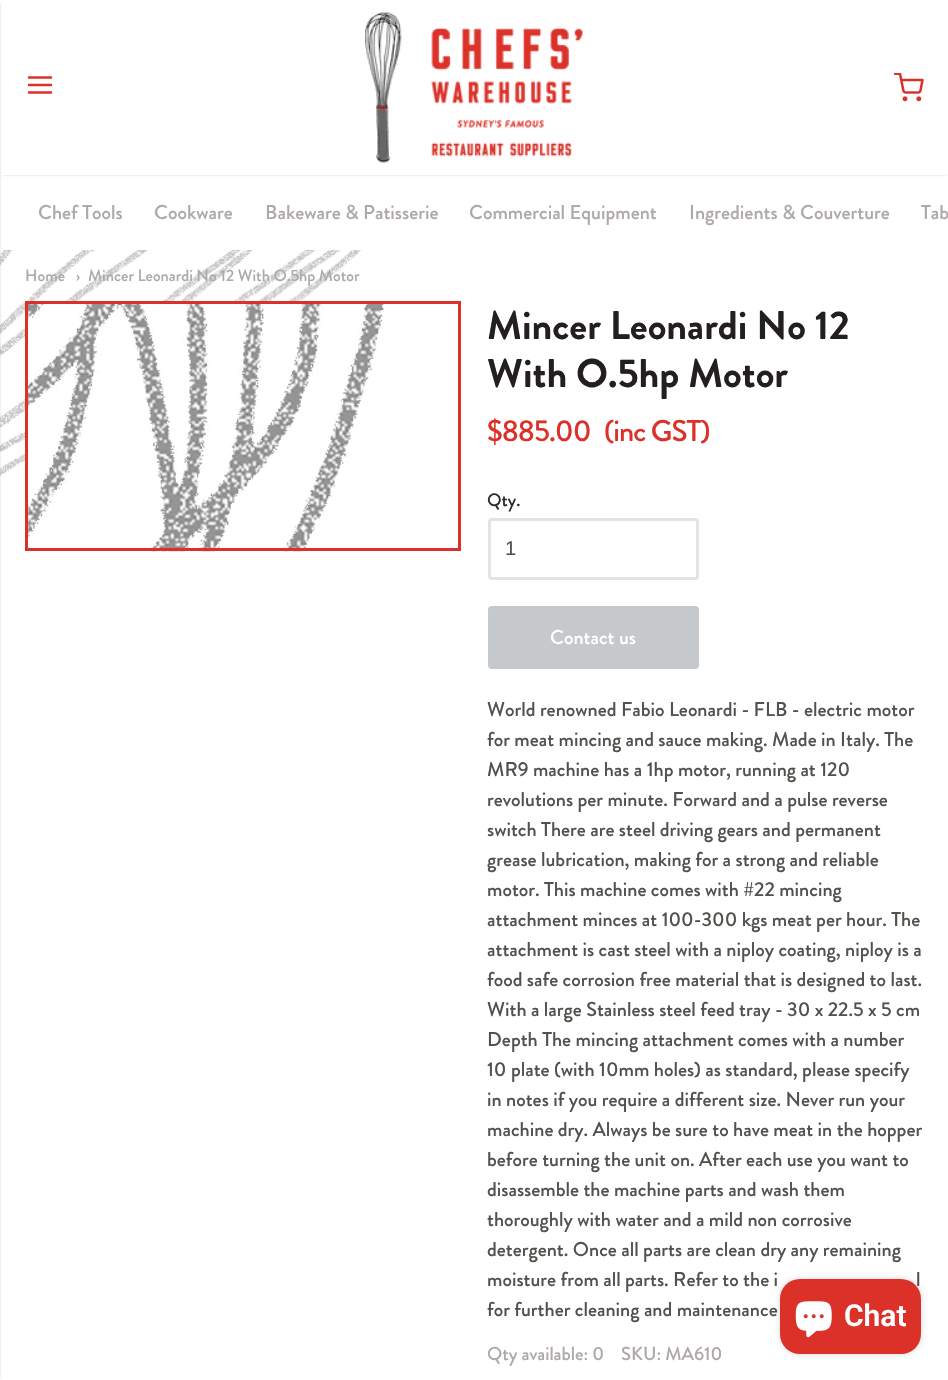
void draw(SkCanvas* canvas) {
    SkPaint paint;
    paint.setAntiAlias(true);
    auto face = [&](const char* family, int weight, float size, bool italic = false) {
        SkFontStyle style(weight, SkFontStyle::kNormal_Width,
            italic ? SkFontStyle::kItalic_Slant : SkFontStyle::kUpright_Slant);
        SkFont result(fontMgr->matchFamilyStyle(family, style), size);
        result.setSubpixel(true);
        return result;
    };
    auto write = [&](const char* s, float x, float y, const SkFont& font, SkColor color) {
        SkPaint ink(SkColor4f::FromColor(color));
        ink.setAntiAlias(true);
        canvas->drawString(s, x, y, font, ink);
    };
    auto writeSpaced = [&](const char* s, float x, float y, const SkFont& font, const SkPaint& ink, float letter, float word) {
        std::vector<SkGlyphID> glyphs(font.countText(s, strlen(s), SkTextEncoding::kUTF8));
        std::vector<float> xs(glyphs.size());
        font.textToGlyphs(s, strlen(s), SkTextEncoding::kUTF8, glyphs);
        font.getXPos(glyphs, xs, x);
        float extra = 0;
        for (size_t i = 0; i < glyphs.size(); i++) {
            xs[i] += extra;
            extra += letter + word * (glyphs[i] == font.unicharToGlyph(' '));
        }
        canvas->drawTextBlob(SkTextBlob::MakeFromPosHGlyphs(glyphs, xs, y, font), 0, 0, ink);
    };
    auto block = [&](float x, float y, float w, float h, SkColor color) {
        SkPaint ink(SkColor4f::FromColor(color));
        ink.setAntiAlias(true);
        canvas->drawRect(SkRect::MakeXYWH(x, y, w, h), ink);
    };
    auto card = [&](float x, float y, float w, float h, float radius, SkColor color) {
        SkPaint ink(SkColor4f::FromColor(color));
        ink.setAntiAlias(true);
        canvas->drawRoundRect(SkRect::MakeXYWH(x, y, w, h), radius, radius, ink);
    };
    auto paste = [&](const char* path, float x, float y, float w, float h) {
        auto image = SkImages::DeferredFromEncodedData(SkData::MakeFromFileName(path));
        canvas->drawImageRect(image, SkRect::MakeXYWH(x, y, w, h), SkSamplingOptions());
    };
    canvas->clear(SK_ColorWHITE);
    paint.setColor(SkColorSetARGB(51, 0, 0, 0));
    paint.setMaskFilter(SkMaskFilter::MakeBlur(kNormal_SkBlurStyle, 1));
    canvas->drawRect(SkRect::MakeXYWH(3, 5, 943, 170), paint);
    paint.setMaskFilter(nullptr);
    block(1, 3, 947, 172, SK_ColorWHITE);
    paste("pic3.png", 0, 250, 530, 226);
    paint.setMaskFilter(SkMaskFilter::MakeBlur(kNormal_SkBlurStyle, 1));
    canvas->drawRect(SkRect::MakeXYWH(-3, 3, 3, 1375), paint);
    paint.setMaskFilter(nullptr);
    paint.setStyle(SkPaint::kStroke_Style);
    paint.setStrokeWidth(2.5f);
    paint.setStrokeCap(SkPaint::kRound_Cap);
    paint.setStrokeJoin(SkPaint::kRound_Join);
    paint.setColor(SkColorSetRGB(219, 49, 40));
    canvas->drawPath(SkPathBuilder().moveTo(29, 85).lineTo(51, 85).moveTo(29, 77.5f).lineTo(51, 77.5f).moveTo(29, 92.5f).lineTo(51, 92.5f).detach(), paint);
    paste("pic1.png", 365, 12, 218, 151);
    paste("pic2.png", 894, 73, 30, 29);
    auto kFont1 = face("Brandon Grotesque", 500, 20);
    write("Chef Tools", 38, 219, kFont1, SkColorSetRGB(174, 168, 168));
    write("Cookware", 154, 219, kFont1, SkColorSetRGB(174, 168, 168));
    write("Bakeware & Patisserie", 265, 219, kFont1, SkColorSetRGB(174, 168, 168));
    write("Commercial Equipment", 469, 219, kFont1, SkColorSetRGB(174, 168, 168));
    write("Ingredients & Couverture", 689, 219, kFont1, SkColorSetRGB(174, 168, 168));
    write("Tab", 921, 219, kFont1, SkColorSetRGB(174, 168, 168));
    auto kFont2 = face("Brandon Grotesque", 500, 16.25f);
    write("Home", 25, 281, kFont2, SkColorSetRGB(174, 168, 168));
    write("›", 76, 281, kFont2, SkColorSetRGB(174, 168, 168));
    write("Mincer Leonardi No 12 With O.5hp Motor", 88, 281, kFont2, SkColorSetRGB(174, 168, 168));
    paste("pic4.png", 25, 304, 359, 248);
    paint.setStrokeWidth(3);
    paint.setStrokeCap(SkPaint::kButt_Cap);
    paint.setStrokeJoin(SkPaint::kMiter_Join);
    canvas->drawRect(SkRect::MakeXYWH(26.5f, 302.5f, 433, 247), paint);
    auto kFont3 = face("Brandon Grotesque", 700, 40);
    write("Mincer Leonardi No 12", 487, 339, kFont3, SkColorSetRGB(35, 31, 32));
    write("With O.5hp Motor", 487, 387, kFont3, SkColorSetRGB(35, 31, 32));
    auto kFont4 = face("Brandon Grotesque", 500, 30);
    paint.setStyle(SkPaint::kFill_Style);
    writeSpaced("$885.00", 487, 441, kFont4, paint, -1, 0);
    writeSpaced("(inc GST)", 604, 441, kFont4, paint, -1, 0);
    auto kFont5 = face("Brandon Grotesque", 500, 18);
    write("Qty.", 487, 506, kFont5, SkColorSetRGB(42, 43, 43));
    paint.setStyle(SkPaint::kStroke_Style);
    paint.setColor(SkColorSetRGB(225, 227, 228));
    canvas->drawRoundRect(SkRect::MakeXYWH(489.5f, 519.5f, 208, 59), 2.5f, 2.5f, paint);
    auto kFont6 = face("Liberation Sans", 400, 20);
    write("1", 505, 555, kFont6, SkColorSetRGB(83, 81, 77));
    paint.setStyle(SkPaint::kFill_Style);
    paint.setColor(SkColorSetRGB(198, 201, 204));
    canvas->drawRoundRect(SkRect::MakeXYWH(489.5f, 607.5f, 208, 60), 2.5f, 2.5f, paint);
    paint.setStyle(SkPaint::kStroke_Style);
    canvas->drawRoundRect(SkRect::MakeXYWH(489.5f, 607.5f, 208, 60), 2.5f, 2.5f, paint);
    write("Contact us", 550, 644, kFont1, SK_ColorWHITE);
    write("World renowned Fabio Leonardi - FLB - electric motor", 487, 716, kFont1, SkColorSetRGB(83, 81, 77));
    write("for meat mincing and sauce making. Made in Italy. The", 487, 746, kFont1, SkColorSetRGB(83, 81, 77));
    write("MR9 machine has a 1hp motor, running at 120", 487, 776, kFont1, SkColorSetRGB(83, 81, 77));
    write("revolutions per minute. Forward and a pulse reverse", 487, 806, kFont1, SkColorSetRGB(83, 81, 77));
    write("switch There are steel driving gears and permanent", 487, 836, kFont1, SkColorSetRGB(83, 81, 77));
    write("grease lubrication, making for a strong and reliable", 487, 866, kFont1, SkColorSetRGB(83, 81, 77));
    write("motor. This machine comes with #22 mincing", 487, 896, kFont1, SkColorSetRGB(83, 81, 77));
    write("attachment minces at 100-300 kgs meat per hour. The", 487, 926, kFont1, SkColorSetRGB(83, 81, 77));
    write("attachment is cast steel with a niploy coating, niploy is a", 487, 956, kFont1, SkColorSetRGB(83, 81, 77));
    write("food safe corrosion free material that is designed to last.", 487, 986, kFont1, SkColorSetRGB(83, 81, 77));
    write("With a large Stainless steel feed tray - 30 x 22.5 x 5 cm", 487, 1016, kFont1, SkColorSetRGB(83, 81, 77));
    write("Depth The mincing attachment comes with a number", 487, 1046, kFont1, SkColorSetRGB(83, 81, 77));
    write("10 plate (with 10mm holes) as standard, please specify", 487, 1076, kFont1, SkColorSetRGB(83, 81, 77));
    write("in notes if you require a different size. Never run your", 487, 1106, kFont1, SkColorSetRGB(83, 81, 77));
    write("machine dry. Always be sure to have meat in the hopper", 487, 1136, kFont1, SkColorSetRGB(83, 81, 77));
    write("before turning the unit on. After each use you want to", 487, 1166, kFont1, SkColorSetRGB(83, 81, 77));
    write("disassemble the machine parts and wash them", 487, 1196, kFont1, SkColorSetRGB(83, 81, 77));
    write("thoroughly with water and a mild non corrosive", 487, 1226, kFont1, SkColorSetRGB(83, 81, 77));
    write("detergent. Once all parts are clean dry any remaining", 487, 1256, kFont1, SkColorSetRGB(83, 81, 77));
    write("moisture from all parts. Refer to the i", 487, 1286, kFont1, SkColorSetRGB(83, 81, 77));
    write("l", 916, 1286, kFont1, SkColorSetRGB(83, 81, 77));
    write("for further cleaning and maintenance", 487, 1316, kFont1, SkColorSetRGB(83, 81, 77));
    auto kFont7 = face("Brandon Grotesque", 500, 18.75f);
    write("Qty available: 0", 487, 1360, kFont7, SkColorSetRGB(174, 168, 168));
    write("SKU: MA610", 621, 1360, kFont7, SkColorSetRGB(174, 168, 168));
    paint.setStyle(SkPaint::kFill_Style);
    paint.setColor(SkColorSetARGB(38, 0, 0, 0));
    paint.setMaskFilter(SkMaskFilter::MakeBlur(kNormal_SkBlurStyle, 3));
    canvas->drawRoundRect(SkRect::MakeXYWH(780, 1279, 141, 75), 20, 20, paint);
    paint.setMaskFilter(nullptr);
    card(780, 1279, 141, 75, 20, SkColorSetRGB(219, 49, 40));
    paste("pic5.png", 795, 1301, 37, 37);
    auto kFont8 = face("Roboto", 600, 30);
    write("Chat", 844, 1326, kFont8, SK_ColorWHITE);
}
